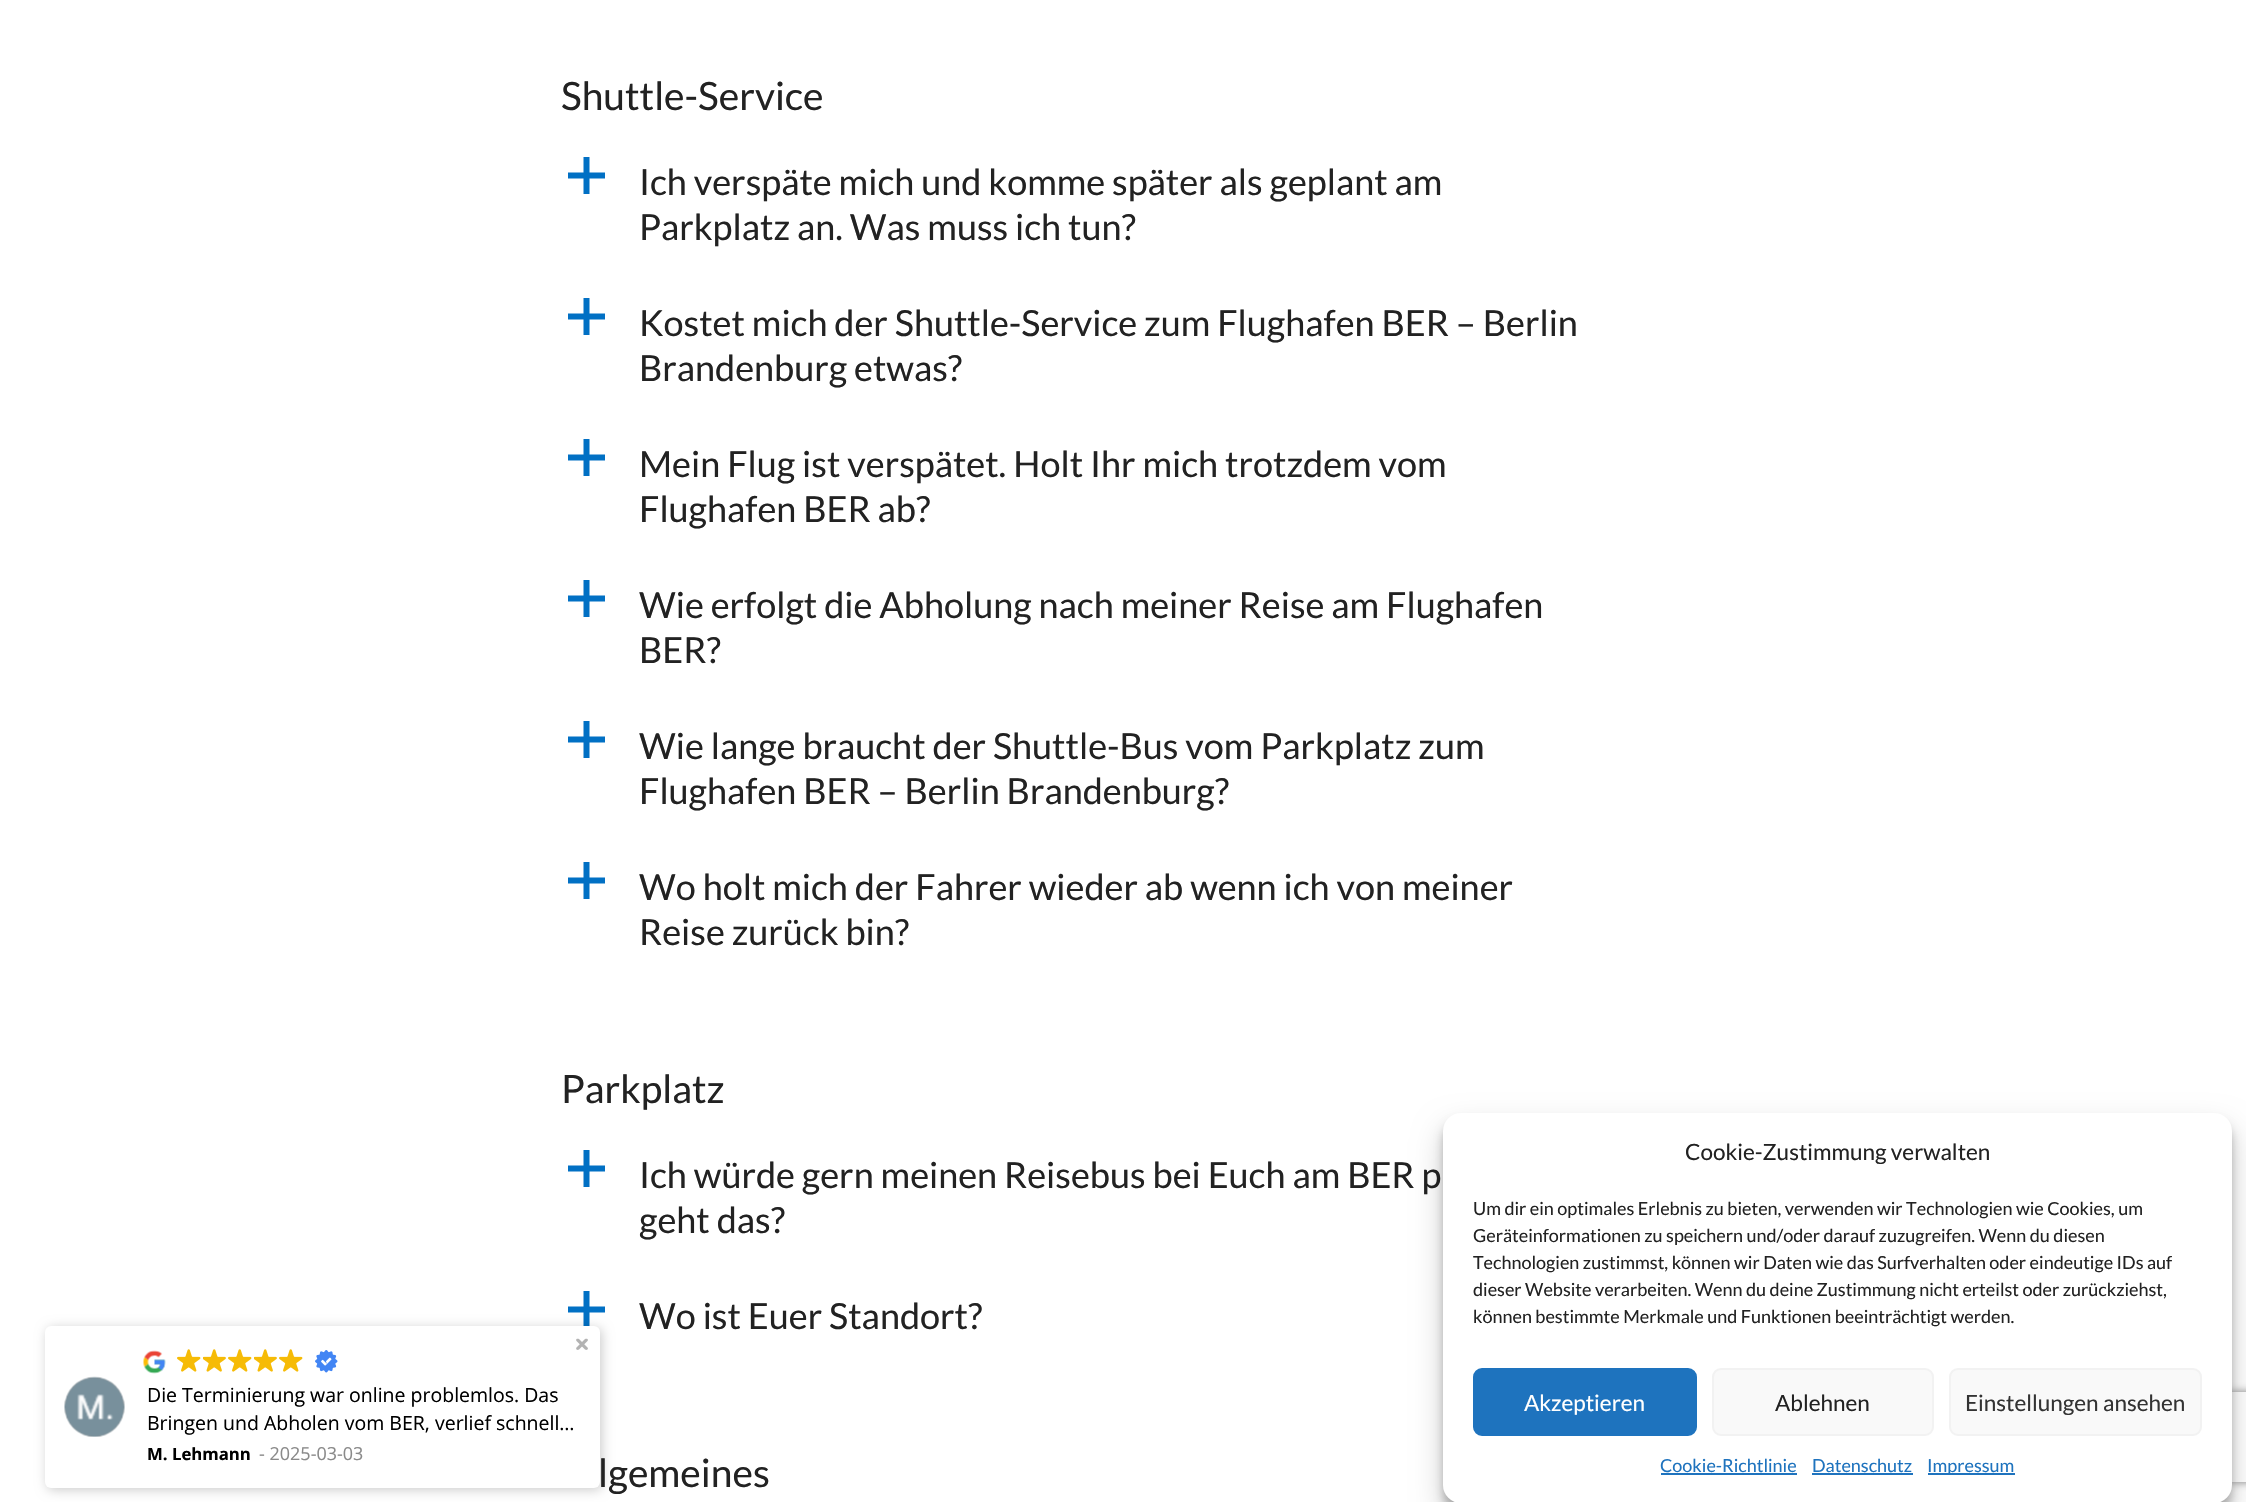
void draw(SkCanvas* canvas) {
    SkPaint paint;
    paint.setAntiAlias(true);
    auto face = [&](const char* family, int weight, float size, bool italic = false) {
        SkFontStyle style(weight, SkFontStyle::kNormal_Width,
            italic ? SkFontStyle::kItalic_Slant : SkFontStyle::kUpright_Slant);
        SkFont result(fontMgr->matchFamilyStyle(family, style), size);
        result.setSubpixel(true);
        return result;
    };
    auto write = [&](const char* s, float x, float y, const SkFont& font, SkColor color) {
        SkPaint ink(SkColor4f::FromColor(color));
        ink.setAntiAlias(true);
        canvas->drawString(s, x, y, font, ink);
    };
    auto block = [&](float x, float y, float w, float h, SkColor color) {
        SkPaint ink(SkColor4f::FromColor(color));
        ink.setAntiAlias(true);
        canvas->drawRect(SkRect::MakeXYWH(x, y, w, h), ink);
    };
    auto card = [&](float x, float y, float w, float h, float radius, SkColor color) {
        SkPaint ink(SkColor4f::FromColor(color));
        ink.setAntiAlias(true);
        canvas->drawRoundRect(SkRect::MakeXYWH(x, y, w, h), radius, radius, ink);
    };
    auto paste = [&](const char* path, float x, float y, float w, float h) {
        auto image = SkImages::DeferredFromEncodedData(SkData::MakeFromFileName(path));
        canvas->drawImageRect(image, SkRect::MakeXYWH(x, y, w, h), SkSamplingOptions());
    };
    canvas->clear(SK_ColorWHITE);
    paint.setColor(SkColorSetRGB(1, 112, 196));
    canvas->drawPath(SkPathBuilder().moveTo(583.5f, 1291).lineTo(589.5f, 1291).lineTo(589.5f, 1328).lineTo(583.5f, 1328).close().moveTo(568, 1306.5f).lineTo(605, 1306.5f).lineTo(605, 1312.5f).lineTo(568, 1312.5f).close().detach(), paint);
    paint.setColor(SkColorSetARGB(51, 0, 0, 0));
    paint.setMaskFilter(SkMaskFilter::MakeBlur(kNormal_SkBlurStyle, 6));
    canvas->drawRoundRect(SkRect::MakeXYWH(47, 1328, 555, 162), 6, 6, paint);
    paint.setMaskFilter(nullptr);
    card(45, 1326, 555, 162, 6, SK_ColorWHITE);
    paint.setColor(SkColorSetRGB(179, 179, 179));
    canvas->drawPath(SkPathBuilder().moveTo(579, 1339).lineTo(587.5f, 1347.5f).cubicTo(588, 1348, 588, 1349, 587.5f, 1349.5f).cubicTo(586.5f, 1350, 586, 1350, 585, 1349.5f).lineTo(576.5f, 1341).cubicTo(576, 1340.5f, 576, 1339.5f, 576.5f, 1339).cubicTo(577.5f, 1338.5f, 578, 1338.5f, 579, 1339).close().detach(), paint);
    canvas->drawPath(SkPathBuilder().moveTo(576.5f, 1347.5f).lineTo(585, 1339).cubicTo(586, 1338.5f, 586.5f, 1338.5f, 587.5f, 1339).cubicTo(588, 1339.5f, 588, 1340.5f, 587.5f, 1341).lineTo(579, 1349.5f).cubicTo(578, 1350, 577.5f, 1350, 576.5f, 1349.5f).cubicTo(576, 1349, 576, 1348, 576.5f, 1347.5f).close().detach(), paint);
    paste("pic1.png", 143, 1350, 23, 24);
    paste("pic2.png", 64, 1376, 61, 61);
    paste("pic3.png", 177, 1349, 24, 23);
    paste("pic4.png", 203, 1349, 23, 23);
    paste("pic3.png", 228, 1349, 24, 23);
    paste("pic4.png", 254, 1349, 23, 23);
    paste("pic3.png", 279, 1349, 24, 23);
    paste("pic5.png", 315, 1350, 23, 23);
    auto kFont1 = face("Open Sans", 400, 19.5f);
    write("Die Terminierung war online problemlos. Das", 147, 1402, kFont1, SK_ColorBLACK);
    write("Bringen und Abholen vom BER, verlief schnell…", 147, 1430, kFont1, SK_ColorBLACK);
    auto kFont2 = face("Open Sans", 700, 16.75f);
    write("M. Lehmann", 147, 1460, kFont2, SK_ColorBLACK);
    auto kFont3 = face("Open Sans", 400, 18);
    write("- 2025-03-03", 259, 1460, kFont3, SkColorSetRGB(138, 138, 138));
    auto kFont4 = face("Lato", 400, 39);
    write("Shuttle-Service", 561, 110, kFont4, SkColorSetRGB(34, 34, 34));
    paint.setColor(SkColorSetRGB(1, 112, 196));
    canvas->drawPath(SkPathBuilder().moveTo(583.5f, 157).lineTo(589.5f, 157).lineTo(589.5f, 194).lineTo(583.5f, 194).close().moveTo(568, 172.5f).lineTo(605, 172.5f).lineTo(605, 178.5f).lineTo(568, 178.5f).close().detach(), paint);
    auto kFont5 = face("Lato", 400, 36);
    write("Ich verspäte mich und komme später als geplant am", 639, 195, kFont5, SkColorSetRGB(34, 34, 34));
    write("Parkplatz an. Was muss ich tun?", 639, 240, kFont5, SkColorSetRGB(34, 34, 34));
    canvas->drawPath(SkPathBuilder().moveTo(583.5f, 298).lineTo(589.5f, 298).lineTo(589.5f, 335).lineTo(583.5f, 335).close().moveTo(568, 313.5f).lineTo(605, 313.5f).lineTo(605, 319.5f).lineTo(568, 319.5f).close().detach(), paint);
    write("Kostet mich der Shuttle-Service zum Flughafen BER – Berlin", 639, 336, kFont5, SkColorSetRGB(34, 34, 34));
    write("Brandenburg etwas?", 639, 381, kFont5, SkColorSetRGB(34, 34, 34));
    canvas->drawPath(SkPathBuilder().moveTo(583.5f, 439).lineTo(589.5f, 439).lineTo(589.5f, 476).lineTo(583.5f, 476).close().moveTo(568, 454.5f).lineTo(605, 454.5f).lineTo(605, 460.5f).lineTo(568, 460.5f).close().detach(), paint);
    write("Mein Flug ist verspätet. Holt Ihr mich trotzdem vom", 639, 477, kFont5, SkColorSetRGB(34, 34, 34));
    write("Flughafen BER ab?", 639, 522, kFont5, SkColorSetRGB(34, 34, 34));
    canvas->drawPath(SkPathBuilder().moveTo(583.5f, 580).lineTo(589.5f, 580).lineTo(589.5f, 617).lineTo(583.5f, 617).close().moveTo(568, 595.5f).lineTo(605, 595.5f).lineTo(605, 601.5f).lineTo(568, 601.5f).close().detach(), paint);
    write("Wie erfolgt die Abholung nach meiner Reise am Flughafen", 639, 618, kFont5, SkColorSetRGB(34, 34, 34));
    write("BER?", 639, 663, kFont5, SkColorSetRGB(34, 34, 34));
    canvas->drawPath(SkPathBuilder().moveTo(583.5f, 721).lineTo(589.5f, 721).lineTo(589.5f, 758).lineTo(583.5f, 758).close().moveTo(568, 736.5f).lineTo(605, 736.5f).lineTo(605, 742.5f).lineTo(568, 742.5f).close().detach(), paint);
    write("Wie lange braucht der Shuttle-Bus vom Parkplatz zum", 639, 759, kFont5, SkColorSetRGB(34, 34, 34));
    write("Flughafen BER – Berlin Brandenburg?", 639, 804, kFont5, SkColorSetRGB(34, 34, 34));
    canvas->drawPath(SkPathBuilder().moveTo(583.5f, 862).lineTo(589.5f, 862).lineTo(589.5f, 899).lineTo(583.5f, 899).close().moveTo(568, 877.5f).lineTo(605, 877.5f).lineTo(605, 883.5f).lineTo(568, 883.5f).close().detach(), paint);
    write("Wo holt mich der Fahrer wieder ab wenn ich von meiner", 639, 900, kFont5, SkColorSetRGB(34, 34, 34));
    write("Reise zurück bin?", 639, 945, kFont5, SkColorSetRGB(34, 34, 34));
    write("Parkplatz", 561, 1103, kFont4, SkColorSetRGB(34, 34, 34));
    canvas->drawPath(SkPathBuilder().moveTo(583.5f, 1150).lineTo(589.5f, 1150).lineTo(589.5f, 1187).lineTo(583.5f, 1187).close().moveTo(568, 1165.5f).lineTo(605, 1165.5f).lineTo(605, 1171.5f).lineTo(568, 1171.5f).close().detach(), paint);
    write("Ich würde gern meinen Reisebus bei Euch am BER p", 639, 1188, kFont5, SkColorSetRGB(34, 34, 34));
    write("geht das?", 639, 1233, kFont5, SkColorSetRGB(34, 34, 34));
    write("Wo ist Euer Standort?", 639, 1329, kFont5, SkColorSetRGB(34, 34, 34));
    write("lgemeines", 598, 1487, kFont4, SkColorSetRGB(34, 34, 34));
    paint.setColor(SkColorSetARGB(59, 0, 0, 0));
    paint.setMaskFilter(SkMaskFilter::MakeBlur(kNormal_SkBlurStyle, 4.5f));
    canvas->drawRoundRect(SkRect::MakeXYWH(1443, 1122, 789, 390), 18, 18, paint);
    paint.setMaskFilter(nullptr);
    paint.setColor(SkColorSetARGB(48, 0, 0, 0));
    paint.setMaskFilter(SkMaskFilter::MakeBlur(kNormal_SkBlurStyle, 15));
    canvas->drawRoundRect(SkRect::MakeXYWH(1443, 1128, 789, 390), 18, 18, paint);
    paint.setMaskFilter(nullptr);
    canvas->save();
    canvas->clipPath(SkPathBuilder(SkPathFillType::kEvenOdd).moveTo(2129, 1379).lineTo(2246, 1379).lineTo(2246, 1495).lineTo(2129, 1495).close().moveTo(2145, 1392).lineTo(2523, 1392).cubicTo(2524.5f, 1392, 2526, 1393.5f, 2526, 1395).lineTo(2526, 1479).cubicTo(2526, 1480.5f, 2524.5f, 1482, 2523, 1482).lineTo(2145, 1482).cubicTo(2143.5f, 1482, 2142, 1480.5f, 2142, 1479).lineTo(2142, 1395).cubicTo(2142, 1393.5f, 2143.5f, 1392, 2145, 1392).close().detach(), true);
    paint.setColor(SkColorSetRGB(128, 128, 128));
    paint.setMaskFilter(SkMaskFilter::MakeBlur(kNormal_SkBlurStyle, 4));
    canvas->drawRoundRect(SkRect::MakeXYWH(2142, 1392, 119, 90), 3, 3, paint);
    paint.setMaskFilter(nullptr);
    canvas->restore();
    card(1443, 1113, 789, 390, 18, SK_ColorWHITE);
    auto kFont6 = face("Lato", 400, 22.5f);
    write("Cookie-Zustimmung verwalten", 1685, 1160, kFont6, SkColorSetRGB(34, 34, 34));
    auto kFont7 = face("Lato", 400, 18);
    write("Um dir ein optimales Erlebnis zu bieten, verwenden wir Technologien wie Cookies, um", 1473, 1215, kFont7, SkColorSetRGB(34, 34, 34));
    write("Geräteinformationen zu speichern und/oder darauf zuzugreifen. Wenn du diesen", 1473, 1242, kFont7, SkColorSetRGB(34, 34, 34));
    write("Technologien zustimmst, können wir Daten wie das Surfverhalten oder eindeutige IDs auf", 1473, 1269, kFont7, SkColorSetRGB(34, 34, 34));
    write("dieser Website verarbeiten. Wenn du deine Zustimmung nicht erteilst oder zurückziehst,", 1473, 1296, kFont7, SkColorSetRGB(34, 34, 34));
    write("können bestimmte Merkmale und Funktionen beeinträchtigt werden.", 1473, 1323, kFont7, SkColorSetRGB(34, 34, 34));
    paint.setColor(SkColorSetRGB(30, 115, 190));
    canvas->drawRoundRect(SkRect::MakeXYWH(1474, 1369, 222, 66), 8, 8, paint);
    paint.setStyle(SkPaint::kStroke_Style);
    paint.setStrokeWidth(2);
    canvas->drawRoundRect(SkRect::MakeXYWH(1474, 1369, 222, 66), 8, 8, paint);
    write("Akzeptieren", 1524, 1411, kFont6, SK_ColorWHITE);
    paint.setStyle(SkPaint::kFill_Style);
    paint.setColor(SkColorSetRGB(249, 249, 249));
    canvas->drawRoundRect(SkRect::MakeXYWH(1713, 1369, 220, 66), 8, 8, paint);
    paint.setStyle(SkPaint::kStroke_Style);
    paint.setColor(SkColorSetRGB(242, 242, 242));
    canvas->drawRoundRect(SkRect::MakeXYWH(1713, 1369, 220, 66), 8, 8, paint);
    write("Ablehnen", 1775, 1411, kFont6, SkColorSetRGB(34, 34, 34));
    paint.setStyle(SkPaint::kFill_Style);
    paint.setColor(SkColorSetRGB(249, 249, 249));
    canvas->drawRoundRect(SkRect::MakeXYWH(1950, 1369, 251, 66), 8, 8, paint);
    paint.setStyle(SkPaint::kStroke_Style);
    paint.setColor(SkColorSetRGB(242, 242, 242));
    canvas->drawRoundRect(SkRect::MakeXYWH(1950, 1369, 251, 66), 8, 8, paint);
    write("Einstellungen ansehen", 1965, 1411, kFont6, SkColorSetRGB(51, 51, 51));
    write("Cookie-Richtlinie", 1660, 1472, kFont7, SkColorSetRGB(30, 115, 190));
    block(1661, 1473, 136, 2, SkColorSetRGB(30, 115, 190));
    write("Datenschutz", 1812, 1472, kFont7, SkColorSetRGB(30, 115, 190));
    block(1812, 1473, 101, 2, SkColorSetRGB(30, 115, 190));
    block(1928, 1473, 87, 2, SkColorSetRGB(30, 115, 190));
    write("Impressum", 1927, 1472, kFont7, SkColorSetRGB(30, 115, 190));
}
